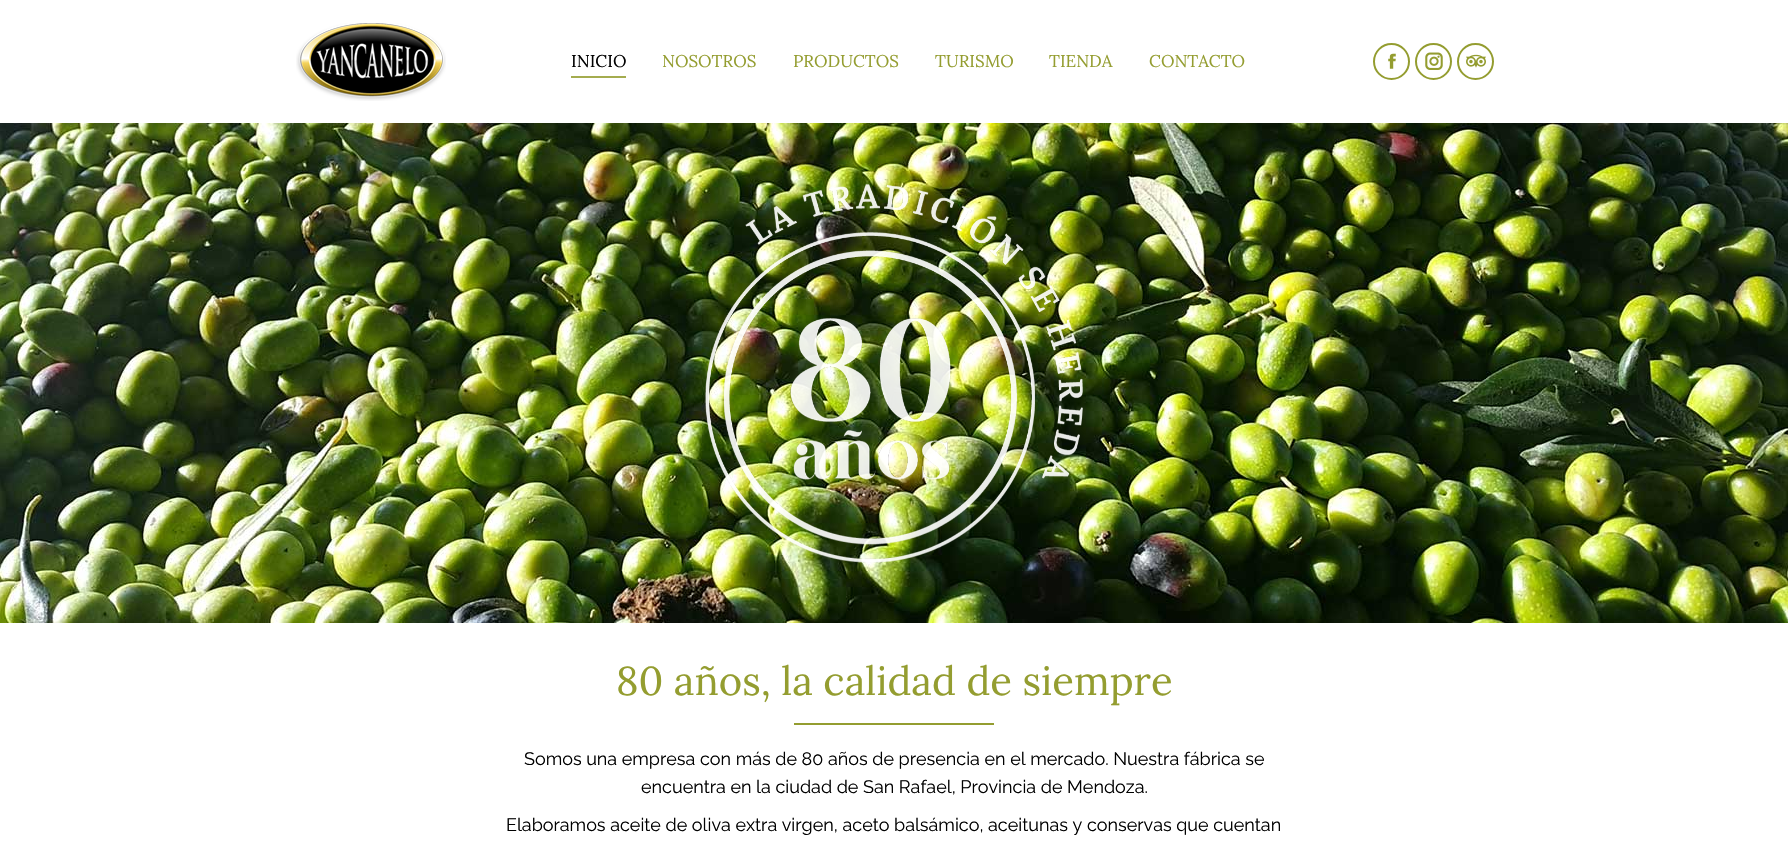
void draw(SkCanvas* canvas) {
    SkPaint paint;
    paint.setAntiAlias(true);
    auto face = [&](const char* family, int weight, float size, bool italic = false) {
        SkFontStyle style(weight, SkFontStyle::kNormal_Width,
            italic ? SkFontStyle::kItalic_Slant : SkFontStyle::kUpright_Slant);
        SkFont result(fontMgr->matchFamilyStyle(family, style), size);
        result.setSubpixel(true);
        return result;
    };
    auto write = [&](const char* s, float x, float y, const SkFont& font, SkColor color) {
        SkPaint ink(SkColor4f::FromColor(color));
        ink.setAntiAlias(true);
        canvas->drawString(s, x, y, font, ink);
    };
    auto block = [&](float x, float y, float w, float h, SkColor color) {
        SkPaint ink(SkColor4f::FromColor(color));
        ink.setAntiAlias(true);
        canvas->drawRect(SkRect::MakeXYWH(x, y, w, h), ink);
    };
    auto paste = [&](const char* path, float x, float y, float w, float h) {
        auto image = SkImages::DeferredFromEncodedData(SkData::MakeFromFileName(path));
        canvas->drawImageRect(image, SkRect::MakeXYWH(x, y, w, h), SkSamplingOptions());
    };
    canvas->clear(SK_ColorWHITE);
    paste("pic1.png", 296, 23, 150, 78);
    auto kFont1 = face("Lora", 400, 17);
    write("INICIO", 571, 67, kFont1, SkColorSetRGB(1, 1, 1));
    block(571, 76, 55, 2, SkColorSetRGB(164, 172, 79));
    write("NOSOTROS", 662, 67, kFont1, SkColorSetRGB(148, 157, 48));
    write("PRODUCTOS", 793, 67, kFont1, SkColorSetRGB(148, 157, 48));
    write("TURISMO", 935, 67, kFont1, SkColorSetRGB(148, 157, 48));
    write("TIENDA", 1049, 67, kFont1, SkColorSetRGB(148, 157, 48));
    write("CONTACTO", 1149, 67, kFont1, SkColorSetRGB(148, 157, 48));
    paint.setStyle(SkPaint::kStroke_Style);
    paint.setStrokeWidth(2);
    paint.setColor(SkColorSetRGB(148, 157, 48));
    canvas->drawCircle(1391.5f, 61.5f, 17.5f, paint);
    paste("pic2.png", 1388, 53, 8, 16);
    canvas->drawCircle(1433.5f, 61.5f, 17.5f, paint);
    paste("pic3.png", 1425, 52, 18, 18);
    canvas->drawCircle(1475.5f, 61.5f, 17.5f, paint);
    paste("pic4.png", 1466, 54, 20, 14);
    paste("pic5.png", 0, 123, 1788, 500);
    paste("pic6.png", 705, 183, 378, 380);
    auto kFont2 = face("Lora", 400, 40);
    write("80 años, la calidad de siempre", 616, 695, kFont2, SkColorSetRGB(148, 157, 48));
    block(794, 723, 200, 2, SkColorSetRGB(148, 157, 48));
    auto kFont3 = face("Raleway", 400, 18);
    write("Somos una empresa con más de 80 años de presencia en el mercado. Nuestra fábrica se", 524, 765, kFont3, SkColorSetRGB(1, 1, 1));
    write("encuentra en la ciudad de San Rafael, Provincia de Mendoza.", 641, 793, kFont3, SkColorSetRGB(1, 1, 1));
    write("Elaboramos aceite de oliva extra virgen, aceto balsámico, aceitunas y conservas que cuentan", 506, 831, kFont3, SkColorSetRGB(1, 1, 1));
}
